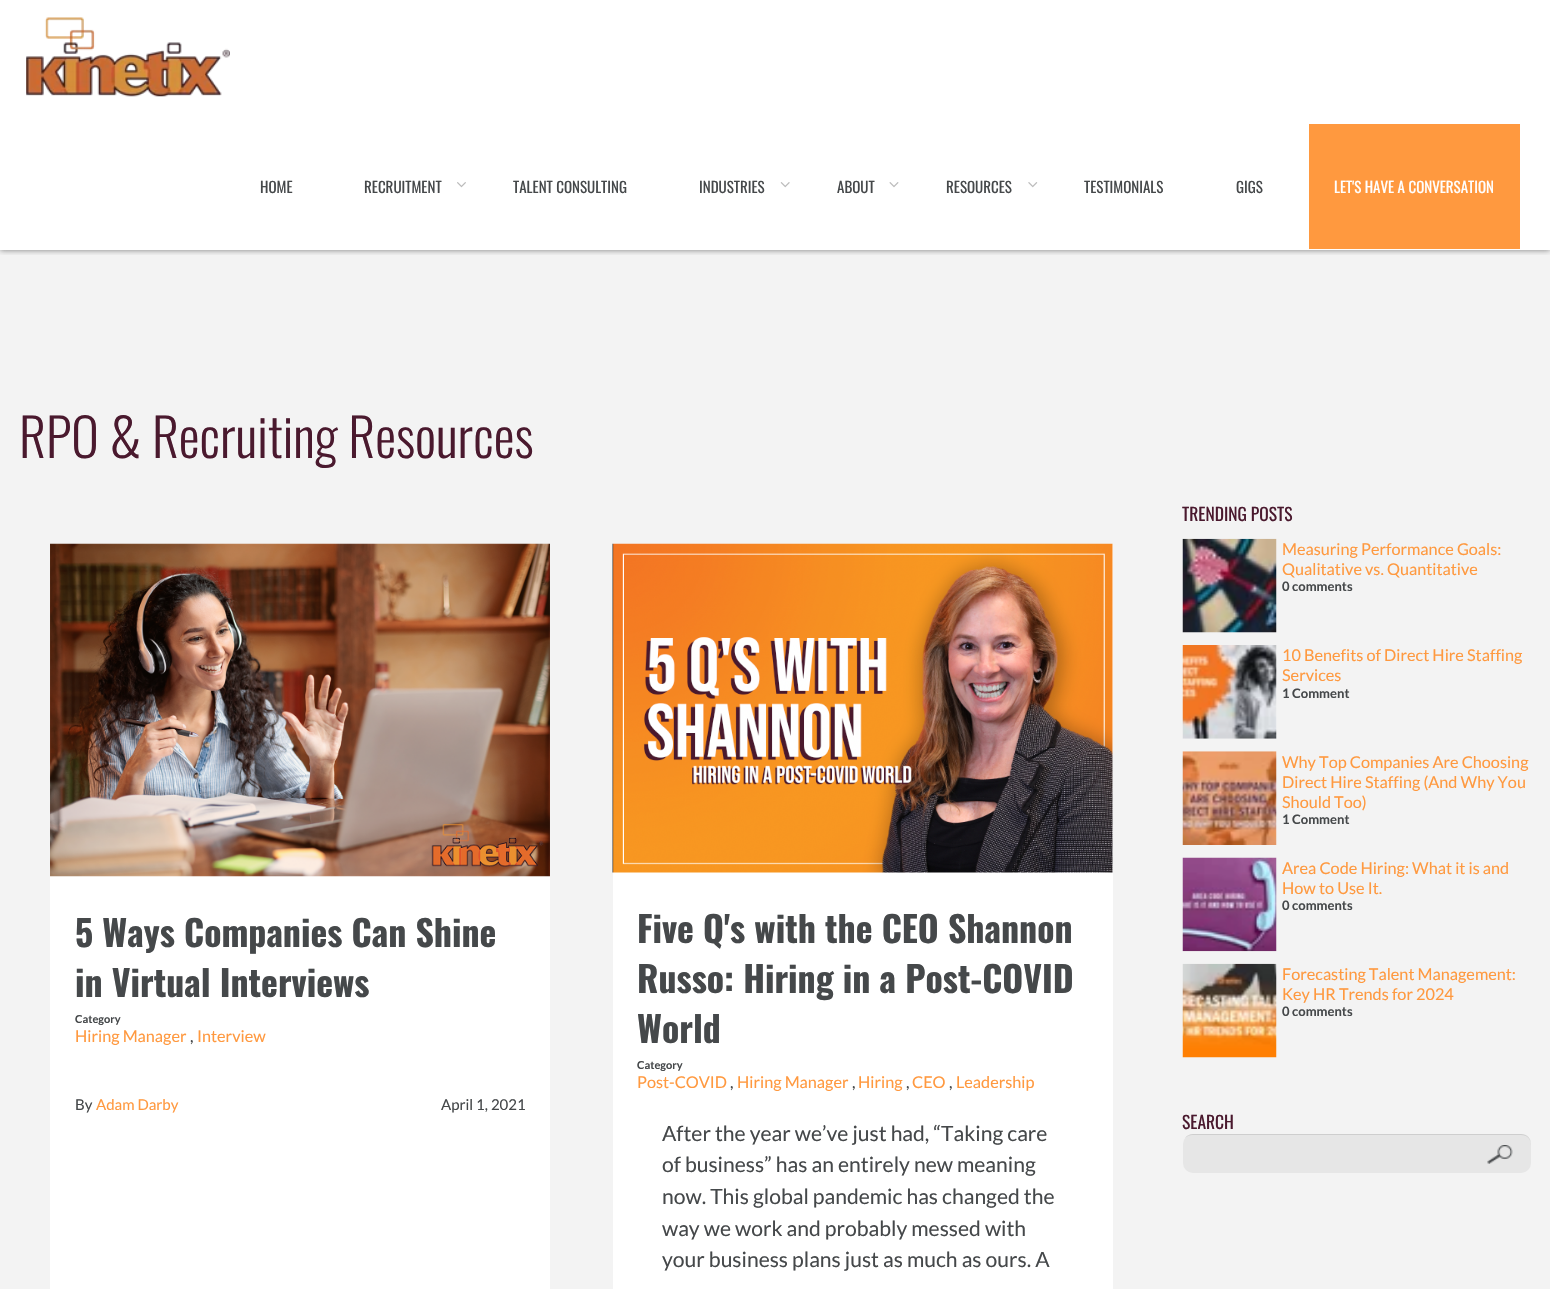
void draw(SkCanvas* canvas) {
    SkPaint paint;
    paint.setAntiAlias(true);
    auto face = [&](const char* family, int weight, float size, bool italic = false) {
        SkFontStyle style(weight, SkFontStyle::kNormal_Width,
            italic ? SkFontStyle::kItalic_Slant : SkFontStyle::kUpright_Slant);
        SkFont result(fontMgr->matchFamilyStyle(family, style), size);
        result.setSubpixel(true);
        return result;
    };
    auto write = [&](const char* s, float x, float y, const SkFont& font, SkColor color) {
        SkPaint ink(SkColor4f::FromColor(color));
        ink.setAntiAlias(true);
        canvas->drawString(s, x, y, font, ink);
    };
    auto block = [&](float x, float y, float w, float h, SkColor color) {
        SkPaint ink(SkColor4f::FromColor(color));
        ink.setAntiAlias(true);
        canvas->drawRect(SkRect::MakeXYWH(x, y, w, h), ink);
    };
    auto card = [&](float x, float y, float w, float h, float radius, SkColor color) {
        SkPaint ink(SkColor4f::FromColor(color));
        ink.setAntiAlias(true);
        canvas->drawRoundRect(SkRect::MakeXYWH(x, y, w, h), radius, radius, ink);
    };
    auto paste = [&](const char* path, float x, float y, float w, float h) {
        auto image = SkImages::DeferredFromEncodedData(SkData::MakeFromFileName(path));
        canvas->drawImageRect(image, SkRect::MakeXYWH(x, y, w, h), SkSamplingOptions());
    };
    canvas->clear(SkColorSetRGB(243, 243, 243));
    block(0, 0, 1550, 250, SK_ColorWHITE);
    canvas->save();
    canvas->clipRect(SkRect::MakeXYWH(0, 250, 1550, 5));
    paint.setColor(SkColorSetARGB(128, 0, 0, 0));
    paint.setMaskFilter(SkMaskFilter::MakeBlur(kNormal_SkBlurStyle, 3));
    canvas->drawRect(SkRect::MakeXYWH(0, 0, 1550, 250), paint);
    paint.setMaskFilter(nullptr);
    canvas->restore();
    paste("pic1.png", 26, 17, 204, 80);
    auto kFont1 = face("Oswald", 400, 15);
    write("HOME", 260, 193, kFont1, SkColorSetRGB(69, 72, 74));
    write("RECRUITMENT", 364, 193, kFont1, SkColorSetRGB(69, 72, 74));
    paste("pic2.png", 457, 182, 9, 6);
    write("TALENT CONSULTING", 513, 193, kFont1, SkColorSetRGB(69, 72, 74));
    write("INDUSTRIES", 699, 193, kFont1, SkColorSetRGB(69, 72, 74));
    paste("pic3.png", 780, 182, 10, 6);
    write("ABOUT", 837, 193, kFont1, SkColorSetRGB(69, 72, 74));
    paste("pic4.png", 889, 182, 10, 6);
    write("RESOURCES", 946, 193, kFont1, SkColorSetRGB(69, 72, 74));
    paste("pic5.png", 1028, 182, 10, 6);
    write("TESTIMONIALS", 1084, 193, kFont1, SkColorSetRGB(69, 72, 74));
    write("GIGS", 1236, 193, kFont1, SkColorSetRGB(69, 72, 74));
    block(1309, 124, 211, 125, SkColorSetRGB(255, 153, 63));
    write("LET'S HAVE A CONVERSATION", 1334, 193, kFont1, SK_ColorWHITE);
    auto kFont2 = face("Oswald", 300, 52.5f);
    write("RPO & Recruiting Resources", 19, 458, kFont2, SkColorSetRGB(74, 25, 46));
    block(50, 544, 500, 745, SK_ColorWHITE);
    paste("pic6.png", 50, 543, 500, 334);
    auto kFont3 = face("Oswald", 700, 35.75f);
    write("5 Ways Companies Can Shine", 75, 947, kFont3, SkColorSetRGB(69, 72, 74));
    write("in Virtual Interviews", 75, 997, kFont3, SkColorSetRGB(69, 72, 74));
    auto kFont4 = face("Lato", 700, 11);
    write("Category", 75, 1023, kFont4, SkColorSetRGB(69, 72, 74));
    auto kFont5 = face("Lato", 400, 16.25f);
    write("Hiring Manager", 75, 1042, kFont5, SkColorSetRGB(255, 153, 63));
    write(",", 190, 1042, kFont5, SkColorSetRGB(69, 72, 74));
    write("Interview", 197, 1042, kFont5, SkColorSetRGB(255, 153, 63));
    auto kFont6 = face("Lato", 400, 15);
    write("By", 75, 1110, kFont6, SkColorSetRGB(69, 72, 74));
    write("Adam Darby", 96, 1110, kFont6, SkColorSetRGB(255, 153, 63));
    write("April 1, 2021", 441, 1110, kFont6, SkColorSetRGB(69, 72, 74));
    block(613, 544, 500, 745, SK_ColorWHITE);
    paste("pic7.png", 612, 543, 501, 330);
    write("Five Q's with the CEO Shannon", 637, 943, kFont3, SkColorSetRGB(69, 72, 74));
    write("Russo: Hiring in a Post-COVID", 637, 993, kFont3, SkColorSetRGB(69, 72, 74));
    write("World", 637, 1043, kFont3, SkColorSetRGB(69, 72, 74));
    write("Category", 637, 1069, kFont4, SkColorSetRGB(69, 72, 74));
    write("Post-COVID", 637, 1088, kFont5, SkColorSetRGB(255, 153, 63));
    write(",", 730, 1088, kFont5, SkColorSetRGB(69, 72, 74));
    write("Hiring Manager", 737, 1088, kFont5, SkColorSetRGB(255, 153, 63));
    write(",", 852, 1088, kFont5, SkColorSetRGB(69, 72, 74));
    write("Hiring", 858, 1088, kFont5, SkColorSetRGB(255, 153, 63));
    write(",", 906, 1088, kFont5, SkColorSetRGB(69, 72, 74));
    write("CEO", 912, 1088, kFont5, SkColorSetRGB(255, 153, 63));
    write(",", 949, 1088, kFont5, SkColorSetRGB(69, 72, 74));
    write("Leadership", 956, 1088, kFont5, SkColorSetRGB(255, 153, 63));
    auto kFont7 = face("Lato", 400, 21.1f);
    write("After the year we’ve just had, “Taking care", 662, 1141, kFont7, SkColorSetRGB(69, 72, 74));
    write("of business” has an entirely new meaning", 662, 1172, kFont7, SkColorSetRGB(69, 72, 74));
    write("now. This global pandemic has changed the", 662, 1204, kFont7, SkColorSetRGB(69, 72, 74));
    write("way we work and probably messed with", 662, 1236, kFont7, SkColorSetRGB(69, 72, 74));
    write("your business plans just as much as ours. A", 662, 1267, kFont7, SkColorSetRGB(69, 72, 74));
    auto kFont8 = face("Oswald", 400, 17.5f);
    write("TRENDING POSTS", 1182, 521, kFont8, SkColorSetRGB(74, 25, 46));
    paste("pic8.png", 1182, 538, 95, 95);
    write("Measuring Performance Goals:", 1282, 555, kFont5, SkColorSetRGB(255, 153, 63));
    write("Qualitative vs. Quantitative", 1282, 575, kFont5, SkColorSetRGB(255, 153, 63));
    auto kFont9 = face("Lato", 700, 13);
    write("0 comments", 1282, 591, kFont9, SkColorSetRGB(69, 72, 74));
    paste("pic9.png", 1182, 645, 95, 94);
    write("10 Benefits of Direct Hire Staffing", 1282, 661, kFont5, SkColorSetRGB(255, 153, 63));
    write("Services", 1282, 681, kFont5, SkColorSetRGB(255, 153, 63));
    write("1 Comment", 1282, 698, kFont9, SkColorSetRGB(69, 72, 74));
    paste("pic10.png", 1182, 751, 95, 94);
    write("Why Top Companies Are Choosing", 1282, 768, kFont5, SkColorSetRGB(255, 153, 63));
    write("Direct Hire Staffing (And Why You", 1282, 788, kFont5, SkColorSetRGB(255, 153, 63));
    write("Should Too)", 1282, 808, kFont5, SkColorSetRGB(255, 153, 63));
    write("1 Comment", 1282, 824, kFont9, SkColorSetRGB(69, 72, 74));
    paste("pic11.png", 1182, 857, 95, 95);
    write("Area Code Hiring: What it is and", 1282, 874, kFont5, SkColorSetRGB(255, 153, 63));
    write("How to Use It.", 1282, 894, kFont5, SkColorSetRGB(255, 153, 63));
    write("0 comments", 1282, 910, kFont9, SkColorSetRGB(69, 72, 74));
    paste("pic12.png", 1182, 963, 95, 95);
    write("Forecasting Talent Management:", 1282, 980, kFont5, SkColorSetRGB(255, 153, 63));
    write("Key HR Trends for 2024", 1282, 1000, kFont5, SkColorSetRGB(255, 153, 63));
    write("0 comments", 1282, 1016, kFont9, SkColorSetRGB(69, 72, 74));
    write("SEARCH", 1182, 1129, kFont8, SkColorSetRGB(74, 25, 46));
    card(1183, 1134, 348, 39, 10, SkColorSetRGB(230, 230, 230));
    paint.setColor(SkColorSetARGB(26, 0, 0, 0));
    canvas->drawPath(SkPathBuilder().moveTo(1192, 1135).lineTo(1521, 1135).cubicTo(1527, 1135, 1531, 1139, 1531, 1145).lineTo(1531, 1144).cubicTo(1531, 1138, 1527, 1134, 1521, 1134).lineTo(1193, 1134).cubicTo(1190, 1134, 1187, 1135, 1185, 1138).cubicTo(1187, 1136, 1190, 1135, 1192, 1135).close().detach(), paint);
    paste("pic13.png", 1487, 1145, 26, 19);
}
